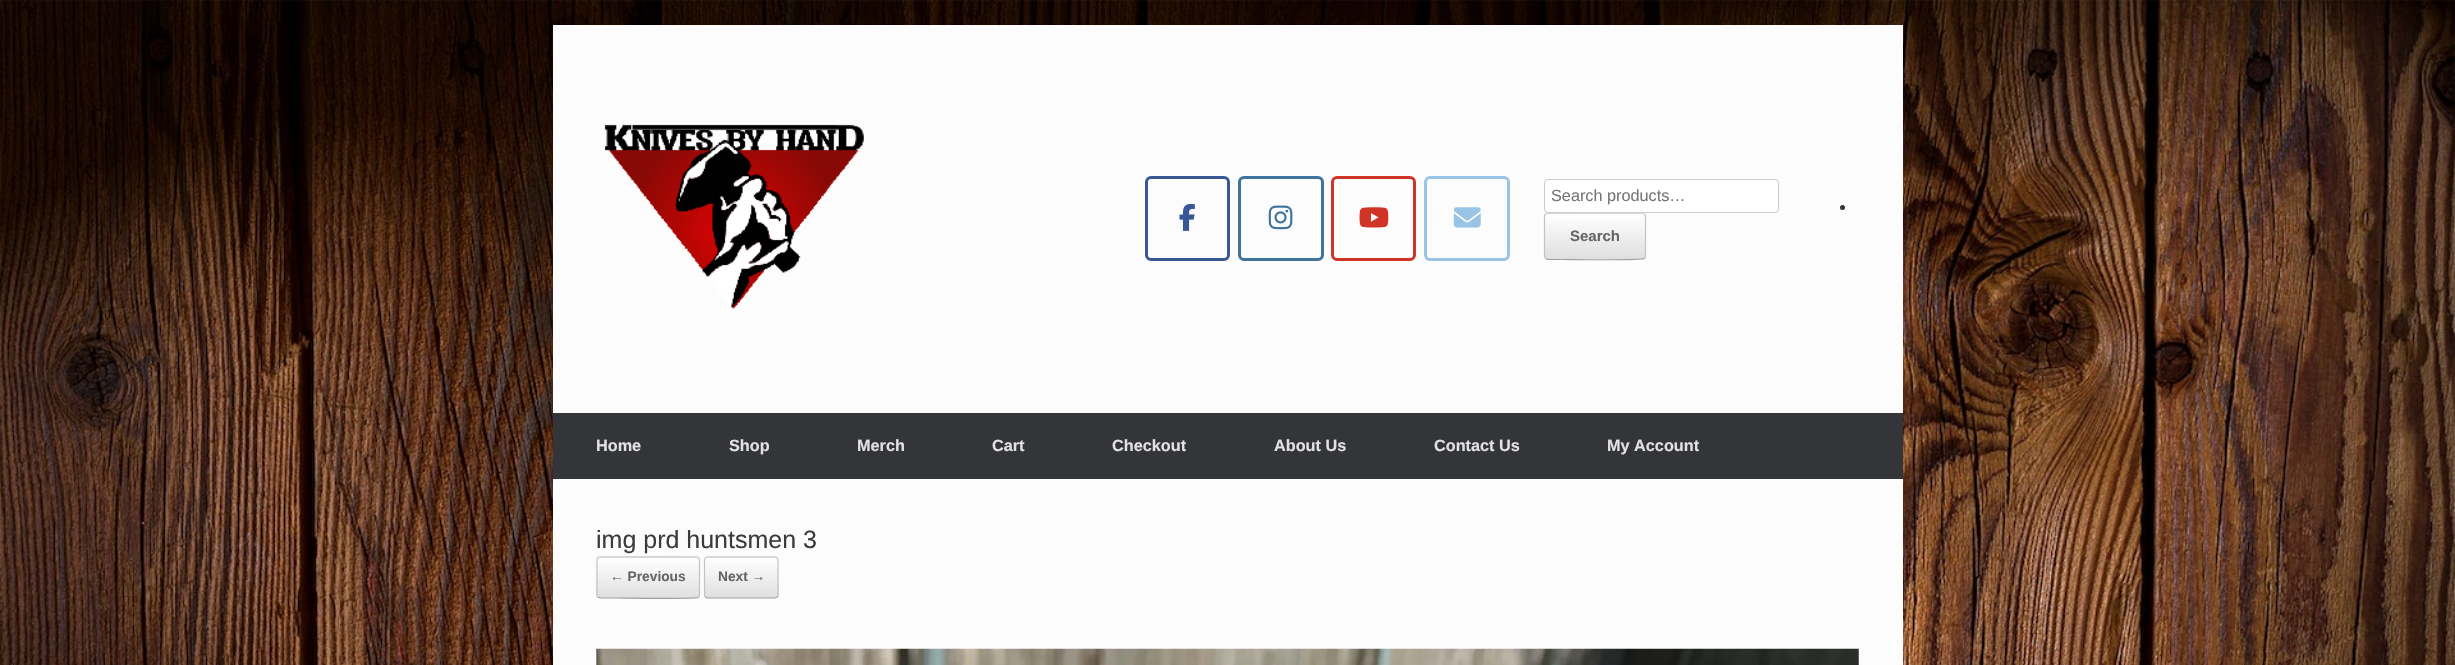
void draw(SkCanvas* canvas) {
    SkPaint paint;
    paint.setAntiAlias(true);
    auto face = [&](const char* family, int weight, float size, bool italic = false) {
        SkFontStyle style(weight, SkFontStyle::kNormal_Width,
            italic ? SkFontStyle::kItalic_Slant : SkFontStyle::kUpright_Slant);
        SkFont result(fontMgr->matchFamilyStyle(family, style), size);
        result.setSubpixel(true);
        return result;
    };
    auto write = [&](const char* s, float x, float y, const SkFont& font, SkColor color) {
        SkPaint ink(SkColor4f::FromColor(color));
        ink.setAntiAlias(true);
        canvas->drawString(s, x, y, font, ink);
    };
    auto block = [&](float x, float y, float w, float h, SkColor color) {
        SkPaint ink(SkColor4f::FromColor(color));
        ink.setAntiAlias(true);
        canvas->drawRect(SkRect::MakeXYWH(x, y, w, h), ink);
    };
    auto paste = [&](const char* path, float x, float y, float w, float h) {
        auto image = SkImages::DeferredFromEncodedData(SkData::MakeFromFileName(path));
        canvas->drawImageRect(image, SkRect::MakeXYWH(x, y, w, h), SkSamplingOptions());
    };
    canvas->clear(SK_ColorWHITE);
    paste("pic1.png", 0, 0, 2455, 665);
    block(553, 25, 1350, 388, SkColorSetRGB(252, 252, 252));
    paste("pic2.png", 604, 124, 260, 185);
    paint.setStyle(SkPaint::kStroke_Style);
    paint.setStrokeWidth(3);
    paint.setColor(SkColorSetRGB(58, 87, 149));
    canvas->drawRoundRect(SkRect::MakeXYWH(1146.5f, 177.5f, 82, 82), 4.5f, 4.5f, paint);
    paste("pic3.png", 1179, 203, 16, 28);
    paint.setColor(SkColorSetRGB(61, 115, 156));
    canvas->drawRoundRect(SkRect::MakeXYWH(1239.5f, 177.5f, 83, 82), 4.5f, 4.5f, paint);
    paste("pic4.png", 1268, 205, 25, 25);
    paint.setColor(SkColorSetRGB(207, 52, 39));
    canvas->drawRoundRect(SkRect::MakeXYWH(1332.5f, 177.5f, 82, 82), 4.5f, 4.5f, paint);
    paste("pic5.png", 1359, 207, 30, 21);
    paint.setColor(SkColorSetRGB(153, 196, 230));
    canvas->drawRoundRect(SkRect::MakeXYWH(1425.5f, 177.5f, 83, 82), 4.5f, 4.5f, paint);
    paste("pic6.png", 1453, 207, 28, 21);
    paint.setStyle(SkPaint::kFill_Style);
    paint.setColor(SK_ColorWHITE);
    canvas->drawRoundRect(SkRect::MakeXYWH(1544.5f, 179.5f, 234, 33), 3.5f, 3.5f, paint);
    paint.setStyle(SkPaint::kStroke_Style);
    paint.setStrokeWidth(1);
    paint.setColor(SkColorSetRGB(204, 204, 204));
    canvas->drawRoundRect(SkRect::MakeXYWH(1544.5f, 179.5f, 234, 33), 3.5f, 3.5f, paint);
    auto kFont1 = face("Liberation Sans", 400, 16.25f);
    write("Search products…", 1551, 201, kFont1, SkColorSetRGB(117, 117, 117));
    canvas->save();
    canvas->clipPath(SkPathBuilder().moveTo(1548, 213).lineTo(1642, 213).cubicTo(1644, 213, 1646, 215, 1646, 217).lineTo(1646, 256).cubicTo(1646, 258, 1644, 260, 1642, 260).lineTo(1548, 260).cubicTo(1546, 260, 1544, 258, 1544, 256).lineTo(1544, 217).cubicTo(1544, 215, 1546, 213, 1548, 213).close().detach(), true);
    paint.setStyle(SkPaint::kFill_Style);
    {
        const SkColor colors[] = {SkColorSetRGB(223, 223, 223), SK_ColorWHITE};
        const float stops[] = {0, 1};
        const SkPoint ends[] = {{1545, 214}, {1545, 169}};
        paint.setShader(SkGradientShader::MakeLinear(ends, colors, stops, 2, SkTileMode::kClamp));
        paint.setAlpha(255);
    }
    canvas->drawRect(SkRect::MakeXYWH(1544, 213, 102, 1), paint);
    {
        const SkColor colors[] = {SkColorSetRGB(223, 223, 223), SK_ColorWHITE};
        const float stops[] = {0, 1};
        const SkPoint ends[] = {{1545, 259}, {1545, 214}};
        paint.setShader(SkGradientShader::MakeLinear(ends, colors, stops, 2, SkTileMode::kClamp));
        paint.setAlpha(255);
    }
    canvas->drawRect(SkRect::MakeXYWH(1544, 214, 102, 45), paint);
    {
        const SkColor colors[] = {SkColorSetRGB(223, 223, 223), SK_ColorWHITE};
        const float stops[] = {0, 1};
        const SkPoint ends[] = {{1545, 304}, {1545, 259}};
        paint.setShader(SkGradientShader::MakeLinear(ends, colors, stops, 2, SkTileMode::kClamp));
        paint.setAlpha(255);
    }
    canvas->drawRect(SkRect::MakeXYWH(1544, 259, 102, 1), paint);
    canvas->restore();
    paint.setStyle(SkPaint::kStroke_Style);
    paint.setStrokeWidth(1.2f);
    paint.setShader(nullptr);
    paint.setColor(SkColorSetRGB(210, 210, 210));
    canvas->drawPath(SkPathBuilder().moveTo(1545.5f, 214).cubicTo(1547.5f, 212, 1618, 213, 1626.5f, 213).lineTo(1642.5f, 213).lineTo(1644.5f, 214).detach(), paint);
    paint.setColor(SkColorSetRGB(195, 195, 195));
    canvas->drawPath(SkPathBuilder().moveTo(1644.5f, 214).lineTo(1645.5f, 216).lineTo(1645.5f, 256).lineTo(1644.5f, 258.5f).detach(), paint);
    paint.setColor(SkColorSetRGB(159, 159, 159));
    canvas->drawPath(SkPathBuilder().moveTo(1644.5f, 258.5f).cubicTo(1642.5f, 260.5f, 1572, 259.5f, 1563.5f, 259.5f).lineTo(1547.5f, 259.5f).lineTo(1545.5f, 258.5f).detach(), paint);
    paint.setColor(SkColorSetRGB(195, 195, 195));
    canvas->drawPath(SkPathBuilder().moveTo(1545.5f, 258.5f).lineTo(1544.5f, 256).lineTo(1544.5f, 216).lineTo(1545.5f, 214).detach(), paint);
    auto kFont2 = face("Liberation Sans", 700, 15);
    write("Search", 1570, 241, kFont2, SkColorSetRGB(100, 100, 100));
    paint.setStyle(SkPaint::kFill_Style);
    paint.setColor(SkColorSetRGB(51, 51, 51));
    canvas->drawCircle(1842.5f, 207.5f, 2.5f, paint);
    block(553, 413, 1350, 66, SkColorSetRGB(52, 53, 56));
    auto kFont3 = face("Liberation Sans", 700, 16.25f);
    write("Home", 596, 451, kFont3, SkColorSetRGB(226, 226, 226));
    write("Shop", 729, 451, kFont3, SkColorSetRGB(226, 226, 226));
    write("Merch", 857, 451, kFont3, SkColorSetRGB(226, 226, 226));
    write("Cart", 992, 451, kFont3, SkColorSetRGB(226, 226, 226));
    write("Checkout", 1112, 451, kFont3, SkColorSetRGB(226, 226, 226));
    write("About Us", 1274, 451, kFont3, SkColorSetRGB(226, 226, 226));
    write("Contact Us", 1434, 451, kFont3, SkColorSetRGB(226, 226, 226));
    write("My Account", 1607, 451, kFont3, SkColorSetRGB(226, 226, 226));
    block(553, 479, 1350, 186, SkColorSetRGB(252, 252, 252));
    auto kFont4 = face("Liberation Sans", 400, 25);
    write("img prd huntsmen 3", 596, 548, kFont4, SkColorSetRGB(59, 59, 59));
    canvas->save();
    canvas->clipPath(SkPathBuilder().moveTo(600, 556).lineTo(696, 556).cubicTo(698, 556, 700, 558, 700, 560).lineTo(700, 595).cubicTo(700, 597, 698, 599, 696, 599).lineTo(600, 599).cubicTo(598, 599, 596, 597, 596, 595).lineTo(596, 560).cubicTo(596, 558, 598, 556, 600, 556).close().detach(), true);
    {
        const SkColor colors[] = {SkColorSetRGB(223, 223, 223), SK_ColorWHITE};
        const float stops[] = {0, 1};
        const SkPoint ends[] = {{598, 558}, {598, 518}};
        paint.setShader(SkGradientShader::MakeLinear(ends, colors, stops, 2, SkTileMode::kClamp));
        paint.setAlpha(255);
    }
    canvas->drawRect(SkRect::MakeXYWH(596, 556, 104, 2), paint);
    {
        const SkColor colors[] = {SkColorSetRGB(223, 223, 223), SK_ColorWHITE};
        const float stops[] = {0, 1};
        const SkPoint ends[] = {{598, 598}, {598, 558}};
        paint.setShader(SkGradientShader::MakeLinear(ends, colors, stops, 2, SkTileMode::kClamp));
        paint.setAlpha(255);
    }
    canvas->drawRect(SkRect::MakeXYWH(596, 558, 104, 40), paint);
    {
        const SkColor colors[] = {SkColorSetRGB(223, 223, 223), SK_ColorWHITE};
        const float stops[] = {0, 1};
        const SkPoint ends[] = {{598, 638}, {598, 598}};
        paint.setShader(SkGradientShader::MakeLinear(ends, colors, stops, 2, SkTileMode::kClamp));
        paint.setAlpha(255);
    }
    canvas->drawRect(SkRect::MakeXYWH(596, 598, 104, 1), paint);
    canvas->restore();
    paint.setStyle(SkPaint::kStroke_Style);
    paint.setShader(nullptr);
    paint.setColor(SkColorSetRGB(210, 210, 210));
    canvas->drawPath(SkPathBuilder().moveTo(598, 558).lineTo(600, 557).lineTo(616, 557).cubicTo(625, 557, 696, 556, 698, 557.5f).lineTo(698.5f, 558).detach(), paint);
    paint.setColor(SkColorSetRGB(195, 195, 195));
    canvas->drawPath(SkPathBuilder().moveTo(698.5f, 558).cubicTo(699, 558.5f, 699.5f, 559, 699.5f, 560).lineTo(699.5f, 595).cubicTo(699.5f, 596, 699, 596.5f, 698.5f, 597).detach(), paint);
    paint.setColor(SkColorSetRGB(159, 159, 159));
    canvas->drawPath(SkPathBuilder().moveTo(698.5f, 597).lineTo(698, 597.5f).cubicTo(696, 599, 625, 598, 616, 598).lineTo(600, 598).lineTo(598, 597).detach(), paint);
    paint.setColor(SkColorSetRGB(195, 195, 195));
    canvas->drawPath(SkPathBuilder().moveTo(598, 597).cubicTo(597, 596.5f, 597, 596, 597, 595).lineTo(597, 560).cubicTo(597, 559, 597, 558.5f, 598, 558).detach(), paint);
    auto kFont5 = face("Liberation Sans", 700, 13.75f);
    write("← Previous", 610, 581, kFont5, SkColorSetRGB(100, 100, 100));
    canvas->save();
    canvas->clipPath(SkPathBuilder().moveTo(708, 556).lineTo(775, 556).cubicTo(777, 556, 779, 558, 779, 560).lineTo(779, 595).cubicTo(779, 597, 777, 599, 775, 599).lineTo(708, 599).cubicTo(706, 599, 704, 597, 704, 595).lineTo(704, 560).cubicTo(704, 558, 706, 556, 708, 556).close().detach(), true);
    paint.setStyle(SkPaint::kFill_Style);
    {
        const SkColor colors[] = {SkColorSetRGB(223, 223, 223), SK_ColorWHITE};
        const float stops[] = {0, 1};
        const SkPoint ends[] = {{705, 558}, {705, 518}};
        paint.setShader(SkGradientShader::MakeLinear(ends, colors, stops, 2, SkTileMode::kClamp));
        paint.setAlpha(255);
    }
    canvas->drawRect(SkRect::MakeXYWH(704, 556, 75, 2), paint);
    {
        const SkColor colors[] = {SkColorSetRGB(223, 223, 223), SK_ColorWHITE};
        const float stops[] = {0, 1};
        const SkPoint ends[] = {{705, 598}, {705, 558}};
        paint.setShader(SkGradientShader::MakeLinear(ends, colors, stops, 2, SkTileMode::kClamp));
        paint.setAlpha(255);
    }
    canvas->drawRect(SkRect::MakeXYWH(704, 558, 75, 40), paint);
    {
        const SkColor colors[] = {SkColorSetRGB(223, 223, 223), SK_ColorWHITE};
        const float stops[] = {0, 1};
        const SkPoint ends[] = {{705, 638}, {705, 598}};
        paint.setShader(SkGradientShader::MakeLinear(ends, colors, stops, 2, SkTileMode::kClamp));
        paint.setAlpha(255);
    }
    canvas->drawRect(SkRect::MakeXYWH(704, 598, 75, 1), paint);
    canvas->restore();
    paint.setStyle(SkPaint::kStroke_Style);
    paint.setShader(nullptr);
    paint.setColor(SkColorSetRGB(210, 210, 210));
    canvas->drawPath(SkPathBuilder().moveTo(705.5f, 558).lineTo(707, 557).lineTo(775.5f, 557).lineTo(777, 558).detach(), paint);
    paint.setColor(SkColorSetRGB(195, 195, 195));
    canvas->drawPath(SkPathBuilder().moveTo(777, 558).cubicTo(778, 558.5f, 778, 559, 778, 560).lineTo(778, 595).cubicTo(778, 596, 778, 596.5f, 777, 597).detach(), paint);
    paint.setColor(SkColorSetRGB(159, 159, 159));
    canvas->drawPath(SkPathBuilder().moveTo(777, 597).lineTo(775.5f, 598).lineTo(707, 598).lineTo(705.5f, 597).detach(), paint);
    paint.setColor(SkColorSetRGB(195, 195, 195));
    canvas->drawPath(SkPathBuilder().moveTo(705.5f, 597).cubicTo(704.5f, 596.5f, 704.5f, 596, 704.5f, 595).lineTo(704.5f, 560).cubicTo(704.5f, 559, 704.5f, 558.5f, 705.5f, 558).detach(), paint);
    write("Next →", 718, 581, kFont5, SkColorSetRGB(100, 100, 100));
    paste("pic7.png", 596, 648, 1263, 17);
}
